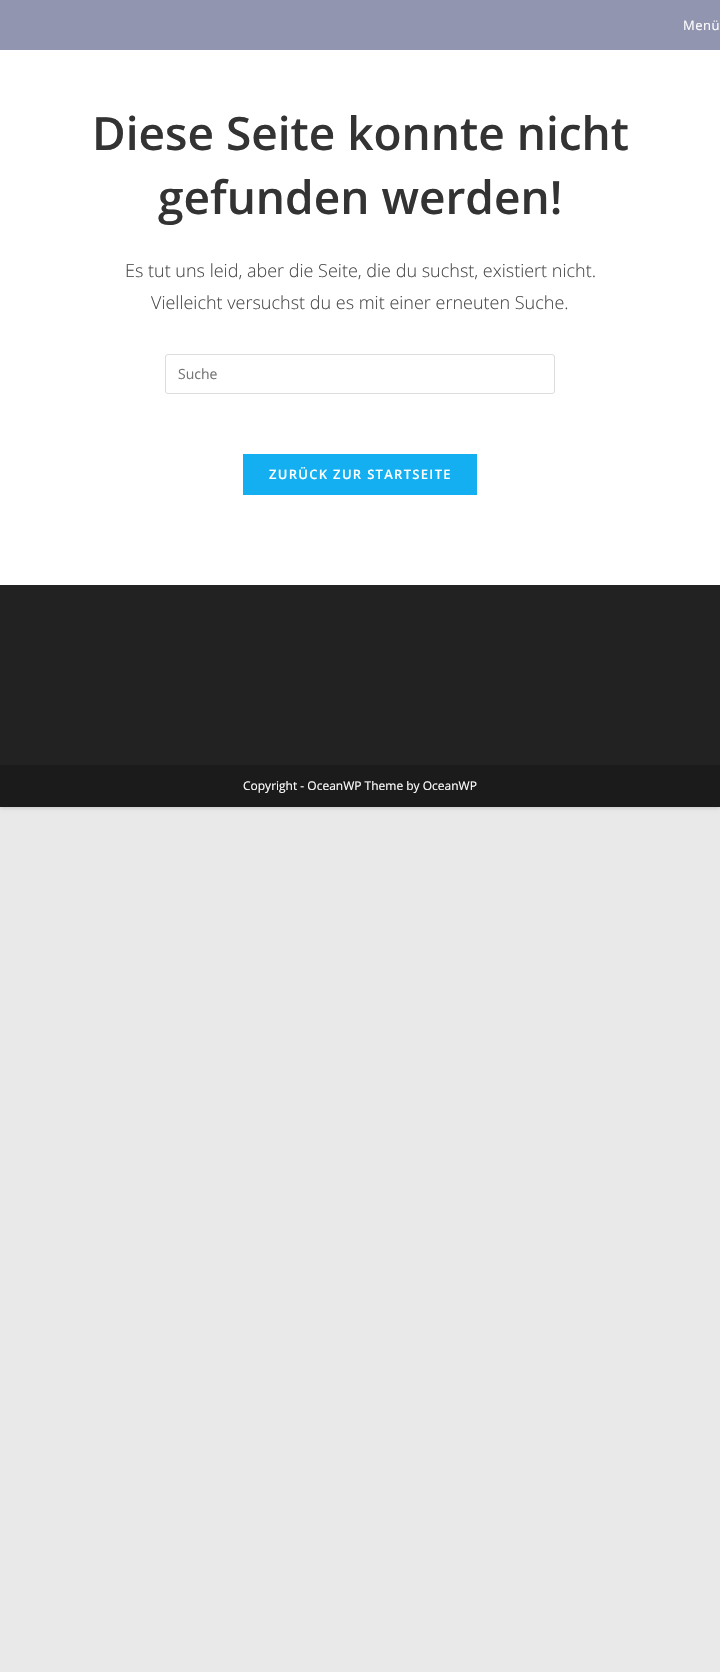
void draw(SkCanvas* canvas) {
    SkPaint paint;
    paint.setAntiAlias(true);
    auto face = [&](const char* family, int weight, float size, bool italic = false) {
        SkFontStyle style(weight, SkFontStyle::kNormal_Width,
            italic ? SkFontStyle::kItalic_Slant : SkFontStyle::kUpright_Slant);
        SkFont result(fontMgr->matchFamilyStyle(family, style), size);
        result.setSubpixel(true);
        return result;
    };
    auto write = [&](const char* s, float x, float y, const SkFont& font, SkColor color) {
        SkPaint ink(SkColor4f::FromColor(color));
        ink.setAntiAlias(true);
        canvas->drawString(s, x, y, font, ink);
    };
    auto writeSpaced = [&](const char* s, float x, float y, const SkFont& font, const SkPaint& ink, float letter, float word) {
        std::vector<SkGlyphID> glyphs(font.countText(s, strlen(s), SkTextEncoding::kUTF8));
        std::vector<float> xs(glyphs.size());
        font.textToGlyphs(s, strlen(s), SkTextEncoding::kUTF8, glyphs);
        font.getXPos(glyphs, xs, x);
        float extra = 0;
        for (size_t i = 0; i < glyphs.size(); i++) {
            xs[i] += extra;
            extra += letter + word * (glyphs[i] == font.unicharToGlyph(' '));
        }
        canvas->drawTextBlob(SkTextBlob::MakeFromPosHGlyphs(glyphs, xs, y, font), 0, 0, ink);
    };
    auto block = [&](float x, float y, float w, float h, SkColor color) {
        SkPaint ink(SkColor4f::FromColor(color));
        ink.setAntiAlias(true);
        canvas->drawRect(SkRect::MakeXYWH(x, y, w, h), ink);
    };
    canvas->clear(SkColorSetRGB(233, 233, 233));
    paint.setColor(SkColorSetARGB(38, 0, 0, 0));
    paint.setMaskFilter(SkMaskFilter::MakeBlur(kNormal_SkBlurStyle, 2));
    canvas->drawRect(SkRect::MakeXYWH(0, 1, 720, 807), paint);
    paint.setMaskFilter(nullptr);
    block(0, 50, 720, 535, SK_ColorWHITE);
    block(0, 0, 720, 50, SkColorSetRGB(145, 149, 176));
    auto kFont1 = face("Open Sans", 400, 13);
    paint.setColor(SK_ColorWHITE);
    writeSpaced("Menü", 683, 30, kFont1, paint, 0.5f, 0);
    auto kFont2 = face("Open Sans", 600, 46);
    write("Diese Seite konnte nicht", 92, 150, kFont2, SkColorSetRGB(51, 51, 51));
    write("gefunden werden!", 158, 214, kFont2, SkColorSetRGB(51, 51, 51));
    auto kFont3 = face("Open Sans", 300, 18);
    write("Es tut uns leid, aber die Seite, die du suchst, existiert nicht.", 125, 277, kFont3, SkColorSetRGB(74, 74, 74));
    write("Vielleicht versuchst du es mit einer erneuten Suche.", 151, 309, kFont3, SkColorSetRGB(74, 74, 74));
    paint.setStyle(SkPaint::kStroke_Style);
    paint.setStrokeWidth(1);
    paint.setColor(SkColorSetRGB(221, 221, 221));
    canvas->drawRoundRect(SkRect::MakeXYWH(165.5f, 354.5f, 389, 39), 2.5f, 2.5f, paint);
    auto kFont4 = face("Open Sans", 400, 14);
    write("Suche", 178, 379, kFont4, SkColorSetRGB(117, 117, 117));
    block(243, 454, 234, 41, SkColorSetRGB(19, 175, 240));
    auto kFont5 = face("Open Sans", 600, 13);
    paint.setStyle(SkPaint::kFill_Style);
    paint.setColor(SK_ColorWHITE);
    writeSpaced("ZURÜCK ZUR STARTSEITE", 269, 479, kFont5, paint, 1.3f, 0);
    block(0, 585, 720, 180, SkColorSetRGB(34, 34, 34));
    block(0, 765, 720, 42, SkColorSetRGB(27, 27, 27));
    auto kFont6 = face("Open Sans", 400, 12);
    write("Copyright - OceanWP Theme by OceanWP", 243, 790, kFont6, SK_ColorWHITE);
}
